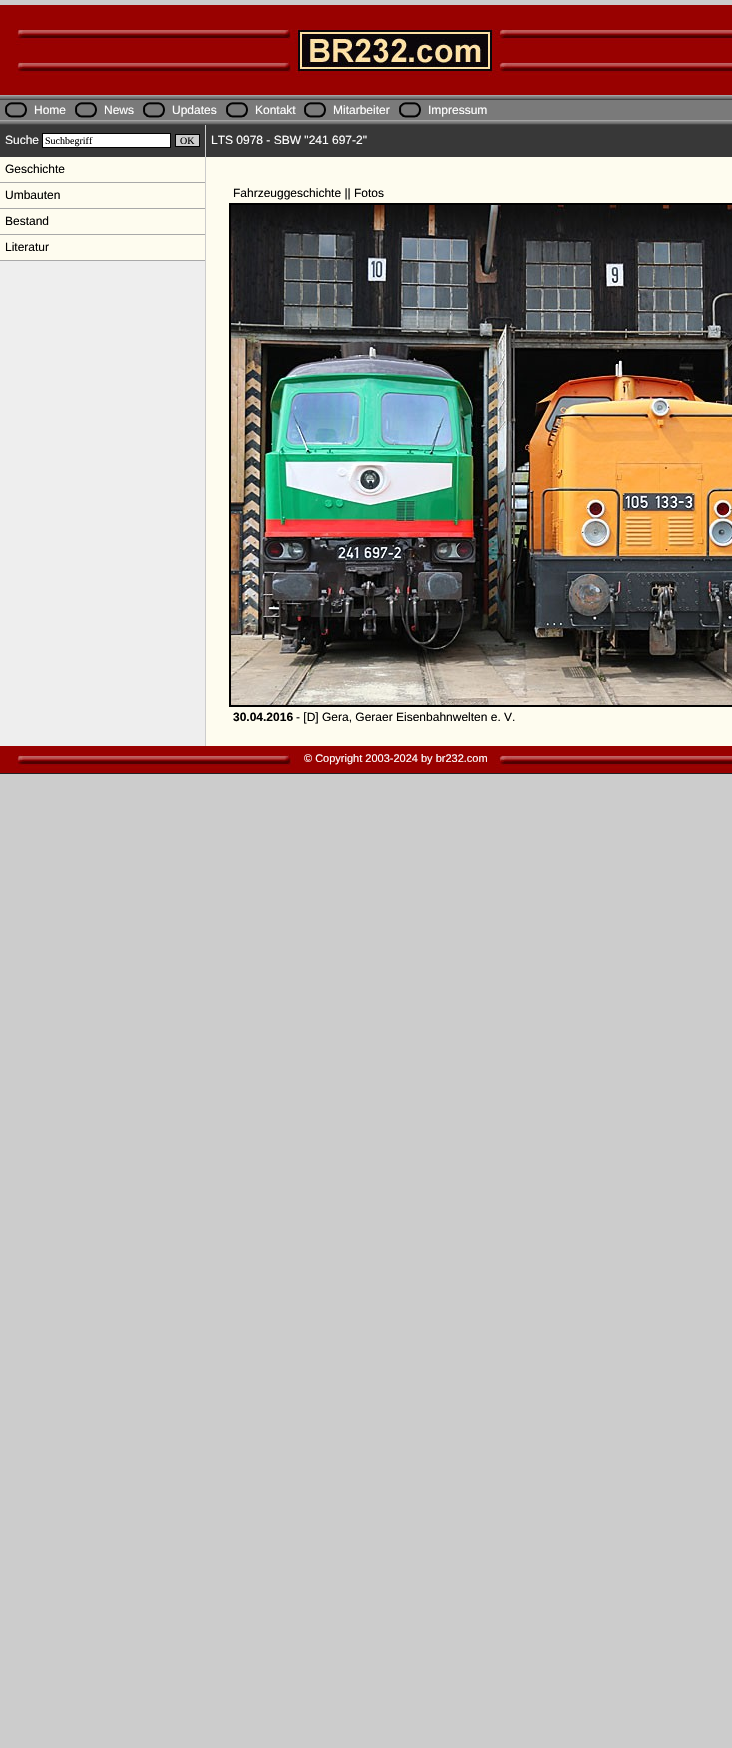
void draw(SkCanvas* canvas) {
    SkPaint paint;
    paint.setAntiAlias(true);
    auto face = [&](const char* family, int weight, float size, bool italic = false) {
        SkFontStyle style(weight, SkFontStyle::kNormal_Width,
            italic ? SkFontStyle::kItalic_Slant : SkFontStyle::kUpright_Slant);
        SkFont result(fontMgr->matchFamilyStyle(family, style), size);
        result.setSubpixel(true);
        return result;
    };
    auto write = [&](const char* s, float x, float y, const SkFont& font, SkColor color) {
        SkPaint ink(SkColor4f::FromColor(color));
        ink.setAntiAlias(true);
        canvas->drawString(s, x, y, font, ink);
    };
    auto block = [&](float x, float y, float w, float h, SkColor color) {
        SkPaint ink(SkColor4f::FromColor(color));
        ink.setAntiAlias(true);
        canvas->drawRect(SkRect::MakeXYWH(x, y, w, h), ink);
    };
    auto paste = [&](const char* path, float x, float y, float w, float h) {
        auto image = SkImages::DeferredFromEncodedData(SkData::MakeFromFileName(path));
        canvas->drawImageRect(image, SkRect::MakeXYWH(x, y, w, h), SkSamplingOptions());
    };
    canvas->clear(SkColorSetRGB(204, 204, 204));
    paste("pic1.png", 0, 261, 205, 485);
    paste("pic2.png", 0, 5, 732, 90);
    paste("pic3.png", 0, 95, 732, 30);
    paste("pic4.png", 5, 102, 22, 16);
    auto kFont1 = face("Liberation Sans", 400, 12);
    write("Home", 34, 114, kFont1, SK_ColorWHITE);
    paste("pic4.png", 75, 102, 22, 16);
    write("News", 104, 114, kFont1, SK_ColorWHITE);
    paste("pic4.png", 143, 102, 22, 16);
    write("Updates", 172, 114, kFont1, SK_ColorWHITE);
    paste("pic4.png", 226, 102, 22, 16);
    write("Kontakt", 255, 114, kFont1, SK_ColorWHITE);
    paste("pic4.png", 304, 102, 22, 16);
    write("Mitarbeiter", 333, 114, kFont1, SK_ColorWHITE);
    paste("pic4.png", 399, 102, 22, 16);
    write("Impressum", 428, 114, kFont1, SK_ColorWHITE);
    block(0, 125, 205, 32, SkColorSetRGB(56, 56, 56));
    write("Suche", 5, 144, kFont1, SK_ColorWHITE);
    paint.setColor(SK_ColorWHITE);
    canvas->drawRect(SkRect::MakeXYWH(42.5f, 133.5f, 128, 14), paint);
    paint.setStyle(SkPaint::kStroke_Style);
    paint.setStrokeWidth(1);
    paint.setColor(SK_ColorBLACK);
    canvas->drawRect(SkRect::MakeXYWH(42.5f, 133.5f, 128, 14), paint);
    auto kFont2 = face("Liberation Serif", 400, 10);
    write("Suchbegriff", 45, 144, kFont2, SK_ColorBLACK);
    paint.setStyle(SkPaint::kFill_Style);
    paint.setColor(SkColorSetRGB(204, 204, 204));
    canvas->drawRect(SkRect::MakeXYWH(175.5f, 134.5f, 24, 12), paint);
    paint.setStyle(SkPaint::kStroke_Style);
    paint.setColor(SK_ColorBLACK);
    canvas->drawRect(SkRect::MakeXYWH(175.5f, 134.5f, 24, 12), paint);
    write("OK", 180, 144, kFont2, SK_ColorBLACK);
    block(0, 157, 205, 25, SkColorSetRGB(254, 252, 239));
    block(0, 182, 205, 1, SkColorSetRGB(169, 169, 169));
    write("Geschichte", 5, 173, kFont1, SK_ColorBLACK);
    block(0, 183, 205, 25, SkColorSetRGB(254, 252, 239));
    block(0, 208, 205, 1, SkColorSetRGB(169, 169, 169));
    write("Umbauten", 5, 199, kFont1, SK_ColorBLACK);
    block(0, 209, 205, 25, SkColorSetRGB(254, 252, 239));
    block(0, 234, 205, 1, SkColorSetRGB(169, 169, 169));
    write("Bestand", 5, 225, kFont1, SK_ColorBLACK);
    block(0, 235, 205, 25, SkColorSetRGB(254, 252, 239));
    block(0, 260, 205, 1, SkColorSetRGB(169, 169, 169));
    write("Literatur", 5, 251, kFont1, SK_ColorBLACK);
    block(206, 157, 526, 589, SkColorSetRGB(254, 252, 239));
    block(206, 125, 526, 32, SkColorSetRGB(56, 56, 56));
    write("LTS 0978 - SBW \"241 697-2\"", 211, 144, kFont1, SK_ColorWHITE);
    write("Fahrzeuggeschichte || Fotos", 233, 197, kFont1, SK_ColorBLACK);
    paint.setStrokeWidth(2);
    canvas->drawRect(SkRect::MakeXYWH(230, 204, 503, 502), paint);
    paste("pic5.png", 231, 205, 501, 500);
    auto kFont3 = face("Liberation Sans", 700, 12);
    write("30.04.2016", 233, 721, kFont3, SK_ColorBLACK);
    write("- [D] Gera, Geraer Eisenbahnwelten e. V.", 296, 721, kFont1, SK_ColorBLACK);
    paste("pic6.png", 0, 746, 732, 28);
    auto kFont4 = face("Liberation Sans", 400, 11);
    write("© Copyright 2003-2024 by br232.com", 304, 762, kFont4, SK_ColorWHITE);
}
